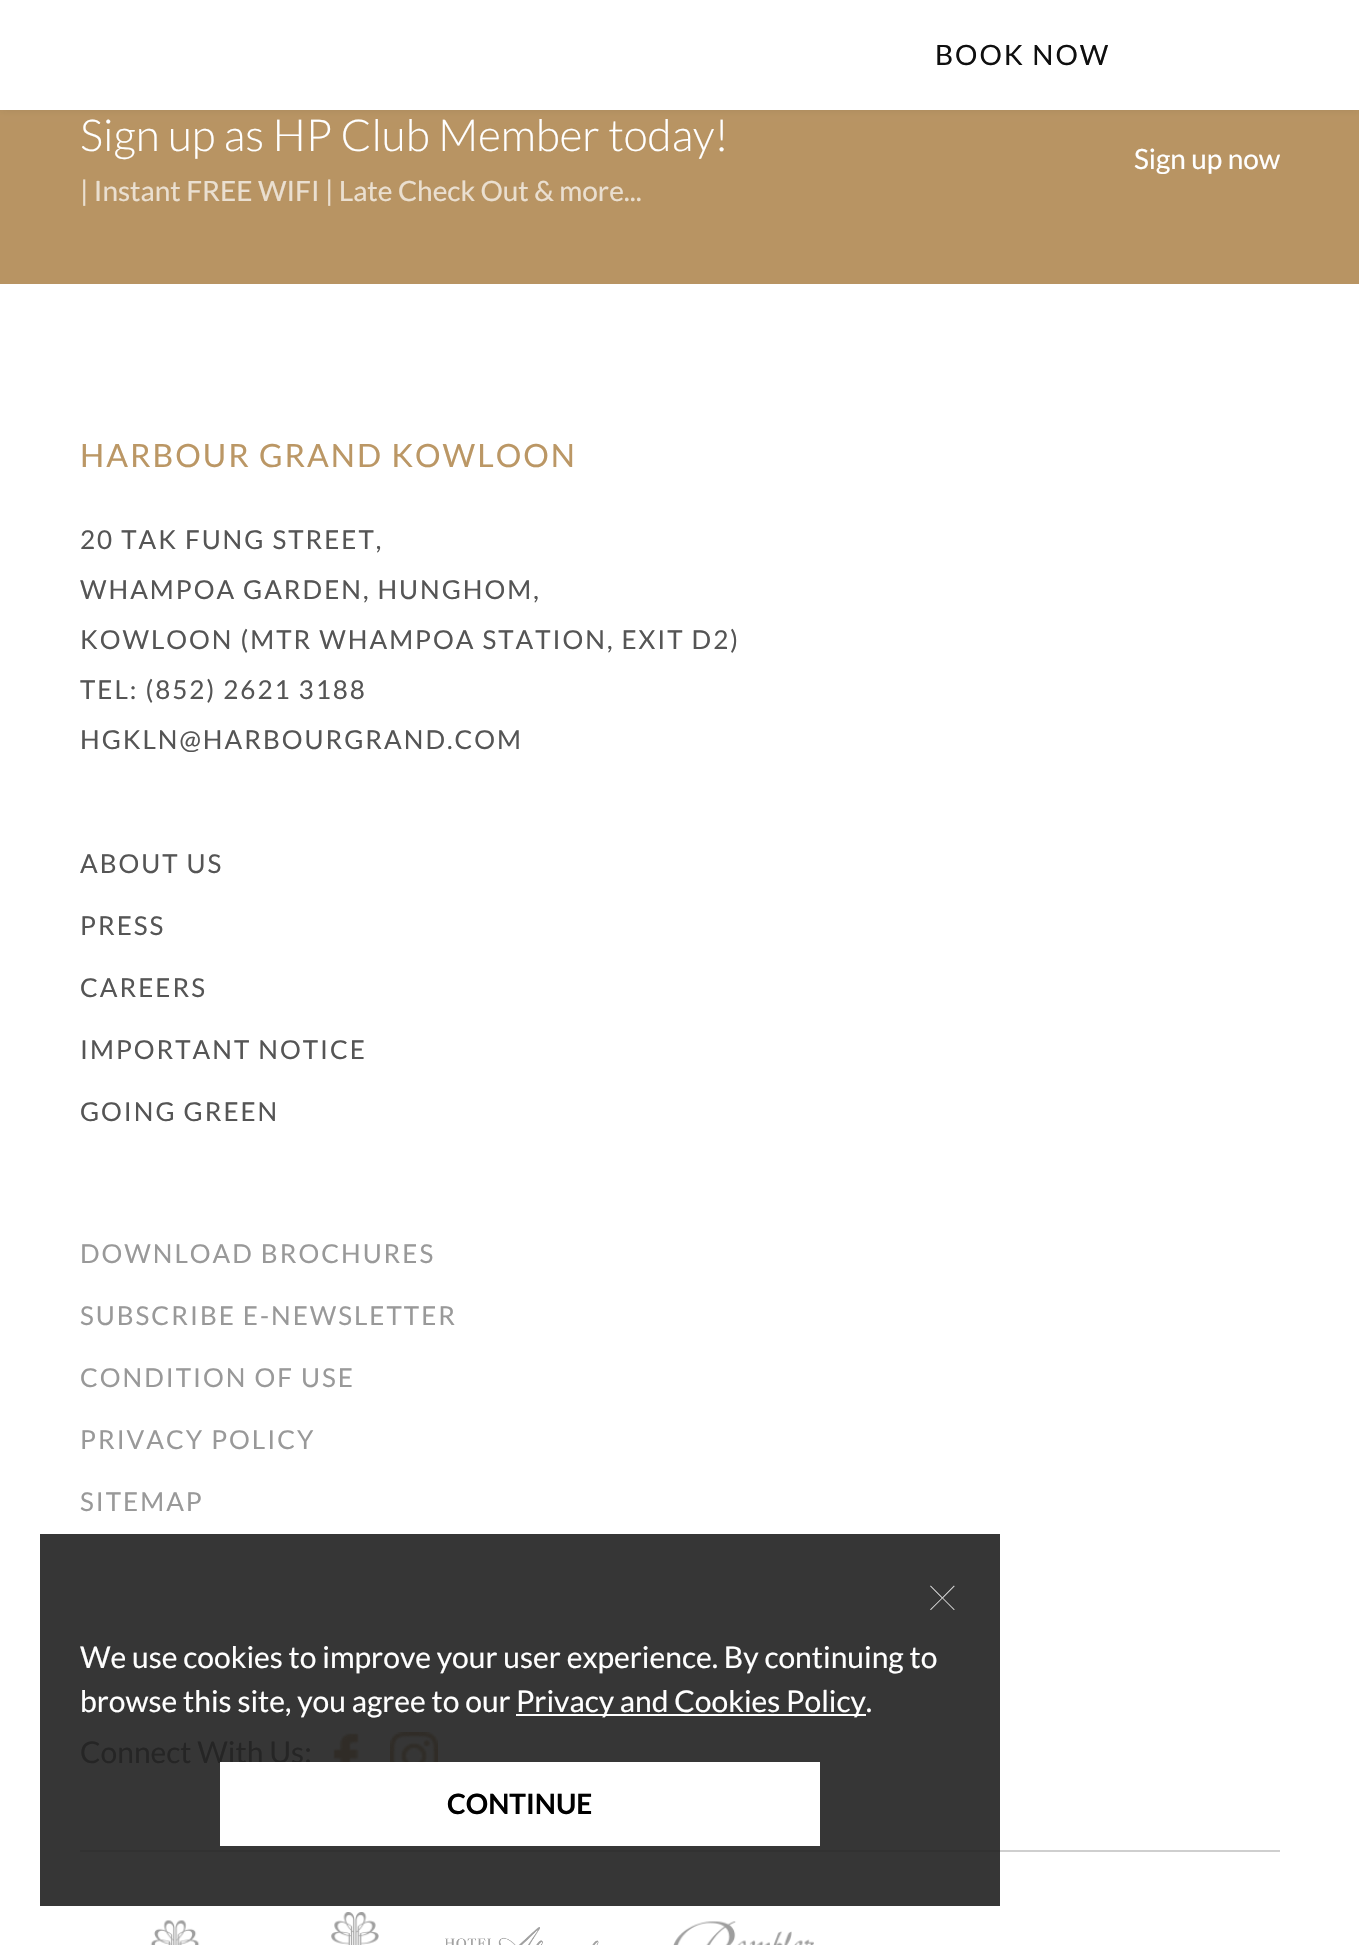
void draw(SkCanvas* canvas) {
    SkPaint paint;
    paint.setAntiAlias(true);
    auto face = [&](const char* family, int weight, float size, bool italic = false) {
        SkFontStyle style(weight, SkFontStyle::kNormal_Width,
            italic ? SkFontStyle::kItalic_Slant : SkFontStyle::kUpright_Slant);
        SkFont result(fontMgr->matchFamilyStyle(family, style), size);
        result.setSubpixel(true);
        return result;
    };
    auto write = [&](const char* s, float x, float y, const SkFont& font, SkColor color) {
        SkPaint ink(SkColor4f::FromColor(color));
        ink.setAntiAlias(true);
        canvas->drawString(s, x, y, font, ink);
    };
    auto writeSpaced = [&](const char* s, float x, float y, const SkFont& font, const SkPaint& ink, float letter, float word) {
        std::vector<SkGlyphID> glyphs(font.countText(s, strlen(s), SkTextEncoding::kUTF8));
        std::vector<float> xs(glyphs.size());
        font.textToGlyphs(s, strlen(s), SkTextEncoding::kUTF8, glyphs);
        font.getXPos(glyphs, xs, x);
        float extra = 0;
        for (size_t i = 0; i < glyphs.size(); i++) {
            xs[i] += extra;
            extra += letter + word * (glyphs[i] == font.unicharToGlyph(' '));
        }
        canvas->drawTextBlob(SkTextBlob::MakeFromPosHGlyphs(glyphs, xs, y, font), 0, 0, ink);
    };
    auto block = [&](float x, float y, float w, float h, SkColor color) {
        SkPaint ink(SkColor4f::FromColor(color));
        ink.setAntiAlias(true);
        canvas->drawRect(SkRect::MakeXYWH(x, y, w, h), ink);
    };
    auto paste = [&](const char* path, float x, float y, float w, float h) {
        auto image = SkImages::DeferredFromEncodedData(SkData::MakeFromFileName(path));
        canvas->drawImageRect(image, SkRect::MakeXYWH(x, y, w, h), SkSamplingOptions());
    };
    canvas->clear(SK_ColorWHITE);
    block(40, 1534, 960, 372, SkColorSetRGB(54, 54, 54));
    block(0, 110, 1359, 174, SkColorSetRGB(184, 148, 99));
    paint.setColor(SkColorSetARGB(26, 38, 38, 38));
    paint.setMaskFilter(SkMaskFilter::MakeBlur(kNormal_SkBlurStyle, 4));
    canvas->drawRect(SkRect::MakeXYWH(0, 0, 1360, 110), paint);
    paint.setMaskFilter(nullptr);
    block(0, 0, 1359, 110, SK_ColorWHITE);
    auto kFont1 = face("Lato", 400, 28);
    paint.setColor(SkColorSetRGB(15, 15, 15));
    writeSpaced("BOOK NOW", 935, 65, kFont1, paint, 2, 0);
    auto kFont2 = face("Lato", 300, 44);
    write("Sign up as HP Club Member today!", 80, 151, kFont2, SK_ColorWHITE);
    write("| Instant FREE WIFI | Late Check Out & more...", 80, 201, kFont1, SkColorSetRGB(234, 223, 208));
    write("Sign up now", 1134, 169, kFont1, SK_ColorWHITE);
    auto kFont3 = face("Lato", 400, 32);
    paint.setColor(SkColorSetRGB(187, 151, 101));
    writeSpaced("HARBOUR GRAND KOWLOON", 80, 467, kFont3, paint, 2, 0);
    auto kFont4 = face("Lato", 400, 26);
    paint.setColor(SkColorSetRGB(85, 85, 85));
    writeSpaced("20 TAK FUNG STREET,", 80, 549, kFont4, paint, 2, 0);
    writeSpaced("WHAMPOA GARDEN, HUNGHOM,", 80, 599, kFont4, paint, 2, 0);
    writeSpaced("KOWLOON (MTR WHAMPOA STATION, EXIT D2)", 80, 649, kFont4, paint, 2, 0);
    writeSpaced("TEL: (852) 2621 3188", 80, 699, kFont4, paint, 2, 0);
    writeSpaced("HGKLN@HARBOURGRAND.COM", 80, 749, kFont4, paint, 2, 0);
    writeSpaced("ABOUT US", 80, 873, kFont4, paint, 2, 0);
    writeSpaced("PRESS", 80, 935, kFont4, paint, 2, 0);
    writeSpaced("CAREERS", 80, 997, kFont4, paint, 2, 0);
    writeSpaced("IMPORTANT NOTICE", 80, 1059, kFont4, paint, 2, 0);
    writeSpaced("GOING GREEN", 80, 1121, kFont4, paint, 2, 0);
    paint.setColor(SkColorSetRGB(153, 153, 153));
    writeSpaced("DOWNLOAD BROCHURES", 80, 1263, kFont4, paint, 2, 0);
    writeSpaced("SUBSCRIBE E-NEWSLETTER", 80, 1325, kFont4, paint, 2, 0);
    writeSpaced("CONDITION OF USE", 80, 1387, kFont4, paint, 2, 0);
    writeSpaced("PRIVACY POLICY", 80, 1449, kFont4, paint, 2, 0);
    writeSpaced("SITEMAP", 80, 1511, kFont4, paint, 2, 0);
    block(1000, 1850, 280, 2, SkColorSetRGB(207, 207, 207));
    block(80, 1850, 920, 2, SkColorSetRGB(50, 50, 50));
    auto kFont5 = face("Lato", 400, 30);
    write("Connect With Us:", 80, 1763, kFont5, SkColorSetRGB(37, 37, 37));
    paste("pic1.png", 333, 1733, 26, 29);
    paste("pic2.png", 390, 1732, 48, 30);
    paste("pic3.png", 150, 1920, 50, 25);
    paste("pic4.png", 331, 1912, 48, 33);
    paste("pic5.png", 445, 1927, 154, 18);
    paste("pic6.png", 673, 1921, 141, 24);
    auto kFont6 = face("Lato", 100, 60);
    write("×", 925, 1618, kFont6, SkColorSetRGB(235, 235, 235));
    write("We use cookies to improve your user experience. By continuing to", 80, 1668, kFont5, SK_ColorWHITE);
    write("browse this site, you agree to our", 80, 1712, kFont5, SK_ColorWHITE);
    block(516, 1714, 350, 2, SK_ColorWHITE);
    write("Privacy and Cookies Policy.", 516, 1712, kFont5, SK_ColorWHITE);
    block(220, 1762, 600, 84, SK_ColorWHITE);
    auto kFont7 = face("Lato", 700, 28);
    write("CONTINUE", 447, 1814, kFont7, SK_ColorBLACK);
}
